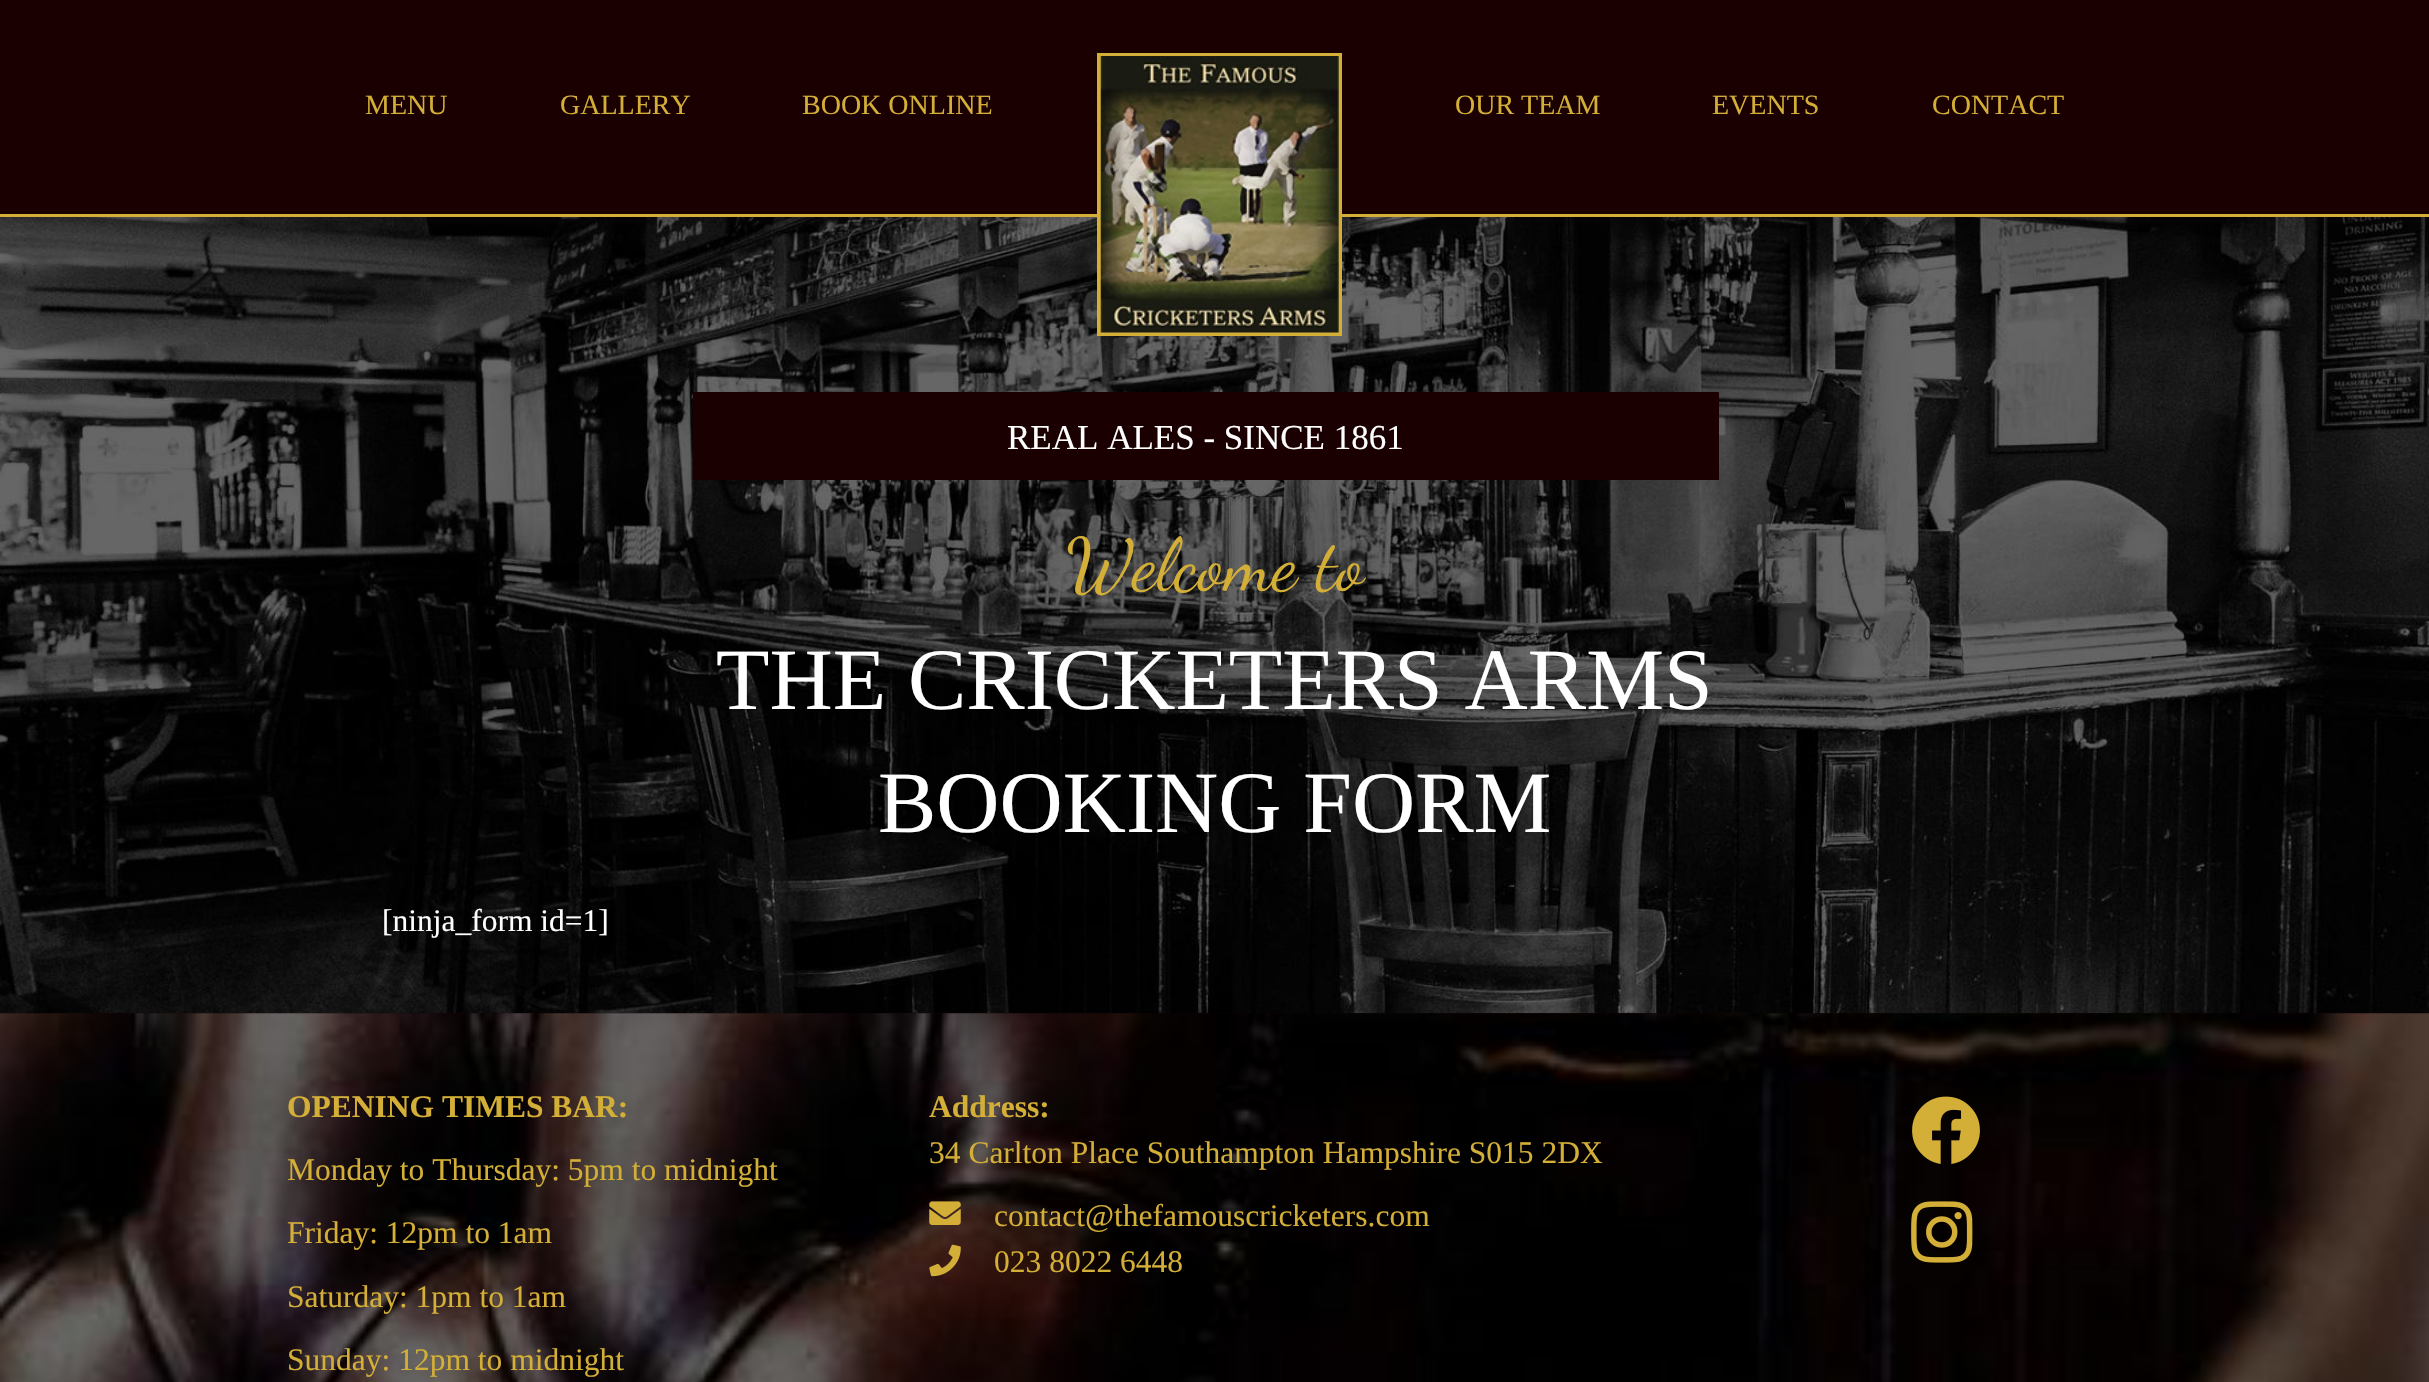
void draw(SkCanvas* canvas) {
    SkPaint paint;
    paint.setAntiAlias(true);
    auto face = [&](const char* family, int weight, float size, bool italic = false) {
        SkFontStyle style(weight, SkFontStyle::kNormal_Width,
            italic ? SkFontStyle::kItalic_Slant : SkFontStyle::kUpright_Slant);
        SkFont result(fontMgr->matchFamilyStyle(family, style), size);
        result.setSubpixel(true);
        return result;
    };
    auto write = [&](const char* s, float x, float y, const SkFont& font, SkColor color) {
        SkPaint ink(SkColor4f::FromColor(color));
        ink.setAntiAlias(true);
        canvas->drawString(s, x, y, font, ink);
    };
    auto block = [&](float x, float y, float w, float h, SkColor color) {
        SkPaint ink(SkColor4f::FromColor(color));
        ink.setAntiAlias(true);
        canvas->drawRect(SkRect::MakeXYWH(x, y, w, h), ink);
    };
    auto paste = [&](const char* path, float x, float y, float w, float h) {
        auto image = SkImages::DeferredFromEncodedData(SkData::MakeFromFileName(path));
        canvas->drawImageRect(image, SkRect::MakeXYWH(x, y, w, h), SkSamplingOptions());
    };
    canvas->clear(SkColorSetRGB(26, 0, 1));
    block(0, 214, 2429, 3, SkColorSetRGB(212, 175, 55));
    auto kFont1 = face("Liberation Serif", 400, 28);
    write("MENU", 365, 114, kFont1, SkColorSetRGB(212, 175, 55));
    write("GALLERY", 560, 114, kFont1, SkColorSetRGB(212, 175, 55));
    write("BOOK ONLINE", 802, 114, kFont1, SkColorSetRGB(212, 175, 55));
    paste("pic2.png", 0, 217, 2429, 797);
    paint.setStyle(SkPaint::kStroke_Style);
    paint.setStrokeWidth(4);
    paint.setColor(SkColorSetRGB(212, 175, 55));
    canvas->drawRect(SkRect::MakeXYWH(1099, 55, 241, 279), paint);
    paste("pic1.png", 1100, 56, 239, 277);
    write("OUR TEAM", 1455, 114, kFont1, SkColorSetRGB(212, 175, 55));
    write("EVENTS", 1712, 114, kFont1, SkColorSetRGB(212, 175, 55));
    write("CONTACT", 1932, 114, kFont1, SkColorSetRGB(212, 175, 55));
    block(693, 392, 1026, 88, SkColorSetRGB(26, 0, 1));
    auto kFont2 = face("Liberation Serif", 400, 35);
    write("REAL ALES - SINCE 1861", 1007, 449, kFont2, SK_ColorWHITE);
    auto kFont3 = face("Dancing Script", 400, 73.5f);
    write("Welcome to", 1066, 589, kFont3, SkColorSetRGB(212, 175, 55));
    auto kFont4 = face("Liberation Serif", 400, 87.5f);
    write("THE CRICKETERS ARMS", 716, 709, kFont4, SK_ColorWHITE);
    write("BOOKING FORM", 878, 832, kFont4, SK_ColorWHITE);
    auto kFont5 = face("Liberation Serif", 400, 31.5f);
    write("[ninja_form id=1]", 382, 931, kFont5, SK_ColorWHITE);
    paste("pic3.png", 0, 1013, 2429, 369);
    auto kFont6 = face("Liberation Serif", 700, 31.5f);
    write("OPENING TIMES BAR:", 287, 1117, kFont6, SkColorSetRGB(212, 175, 55));
    write("Monday to Thursday: 5pm to midnight", 287, 1180, kFont5, SkColorSetRGB(212, 175, 55));
    write("Friday: 12pm to 1am", 287, 1243, kFont5, SkColorSetRGB(212, 175, 55));
    write("Saturday: 1pm to 1am", 287, 1307, kFont5, SkColorSetRGB(212, 175, 55));
    write("Sunday: 12pm to midnight", 287, 1370, kFont5, SkColorSetRGB(212, 175, 55));
    write("Address:", 929, 1117, kFont6, SkColorSetRGB(212, 175, 55));
    write("34 Carlton Place Southampton Hampshire S015 2DX", 929, 1163, kFont5, SkColorSetRGB(212, 175, 55));
    paste("pic4.png", 929, 1201, 32, 24);
    write("contact@thefamouscricketers.com", 994, 1226, kFont5, SkColorSetRGB(212, 175, 55));
    paste("pic5.png", 929, 1244, 32, 33);
    write("023 8022 6448", 994, 1272, kFont5, SkColorSetRGB(212, 175, 55));
    paste("pic6.png", 1912, 1096, 68, 68);
    paste("pic7.png", 1911, 1201, 62, 62);
}
